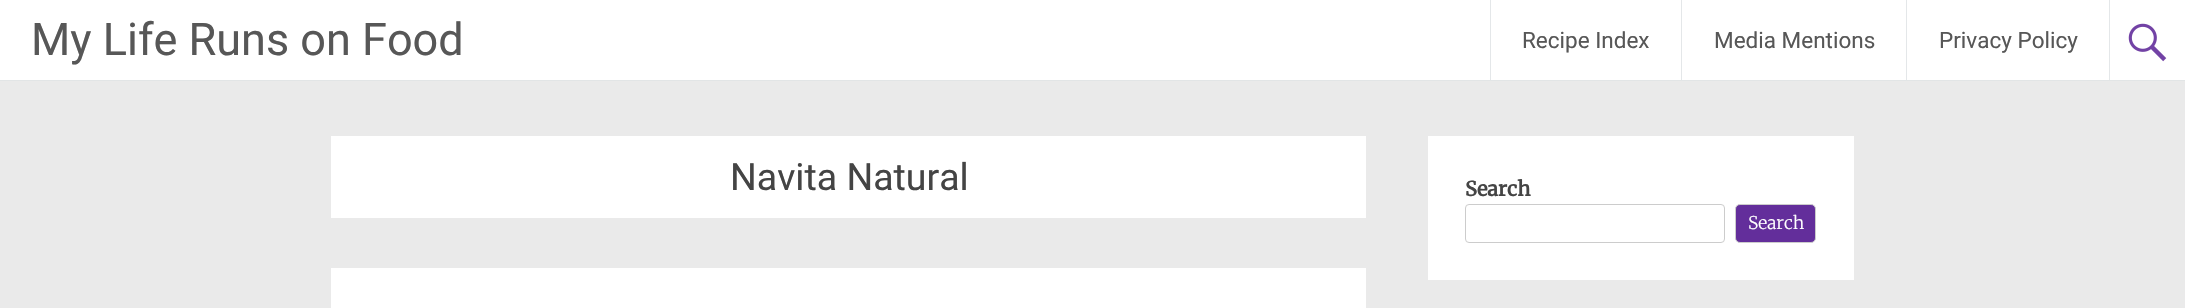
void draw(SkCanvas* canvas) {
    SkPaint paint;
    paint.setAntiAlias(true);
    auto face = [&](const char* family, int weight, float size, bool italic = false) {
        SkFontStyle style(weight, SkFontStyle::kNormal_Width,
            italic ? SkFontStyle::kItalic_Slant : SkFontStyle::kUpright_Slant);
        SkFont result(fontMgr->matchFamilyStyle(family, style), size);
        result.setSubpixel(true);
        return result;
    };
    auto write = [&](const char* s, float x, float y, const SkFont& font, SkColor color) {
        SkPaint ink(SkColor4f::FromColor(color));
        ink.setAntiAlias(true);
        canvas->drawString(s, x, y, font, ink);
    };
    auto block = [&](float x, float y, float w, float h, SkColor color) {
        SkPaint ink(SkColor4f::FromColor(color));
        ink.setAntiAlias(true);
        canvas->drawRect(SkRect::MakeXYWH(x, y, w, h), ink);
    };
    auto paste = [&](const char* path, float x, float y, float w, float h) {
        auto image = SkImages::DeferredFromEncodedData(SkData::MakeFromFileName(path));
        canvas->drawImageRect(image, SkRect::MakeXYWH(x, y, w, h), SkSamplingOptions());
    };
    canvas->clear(SK_ColorWHITE);
    block(0, 80, 2185, 1, SkColorSetRGB(226, 229, 230));
    auto kFont1 = face("Roboto", 400, 45);
    write("My Life Runs on Food", 31, 55, kFont1, SkColorSetRGB(87, 87, 87));
    block(1490, 0, 1, 80, SkColorSetRGB(228, 231, 233));
    auto kFont2 = face("Roboto", 400, 22.5f);
    write("Recipe Index", 1522, 48, kFont2, SkColorSetRGB(87, 87, 87));
    block(1681, 0, 1, 80, SkColorSetRGB(228, 231, 233));
    write("Media Mentions", 1714, 48, kFont2, SkColorSetRGB(87, 87, 87));
    block(1906, 0, 1, 80, SkColorSetRGB(228, 231, 233));
    write("Privacy Policy", 1939, 48, kFont2, SkColorSetRGB(87, 87, 87));
    block(2109, 0, 1, 80, SkColorSetRGB(228, 231, 233));
    paste("pic1.png", 2128, 23, 39, 39);
    block(0, 81, 2185, 227, SkColorSetRGB(234, 234, 234));
    block(331, 136, 1035, 82, SK_ColorWHITE);
    auto kFont3 = face("Roboto", 400, 37.5f);
    write("Navita Natural", 730, 190, kFont3, SkColorSetRGB(68, 68, 68));
    block(331, 268, 1035, 40, SK_ColorWHITE);
    block(1428, 136, 426, 144, SK_ColorWHITE);
    auto kFont4 = face("Merriweather", 700, 20);
    write("Search", 1465, 196, kFont4, SkColorSetRGB(68, 68, 68));
    paint.setStyle(SkPaint::kStroke_Style);
    paint.setStrokeWidth(1);
    paint.setColor(SkColorSetRGB(204, 204, 204));
    canvas->drawRoundRect(SkRect::MakeXYWH(1465.5f, 204.5f, 259, 38), 3.5f, 3.5f, paint);
    paint.setStyle(SkPaint::kFill_Style);
    paint.setColor(SkColorSetRGB(99, 46, 155));
    canvas->drawRoundRect(SkRect::MakeXYWH(1735.5f, 204.5f, 80, 38), 4.5f, 4.5f, paint);
    paint.setStyle(SkPaint::kStroke_Style);
    paint.setColor(SkColorSetRGB(204, 204, 204));
    canvas->drawRoundRect(SkRect::MakeXYWH(1735.5f, 204.5f, 80, 38), 4.5f, 4.5f, paint);
    auto kFont5 = face("Merriweather", 300, 17.5f);
    write("Search", 1748, 229, kFont5, SK_ColorWHITE);
}
